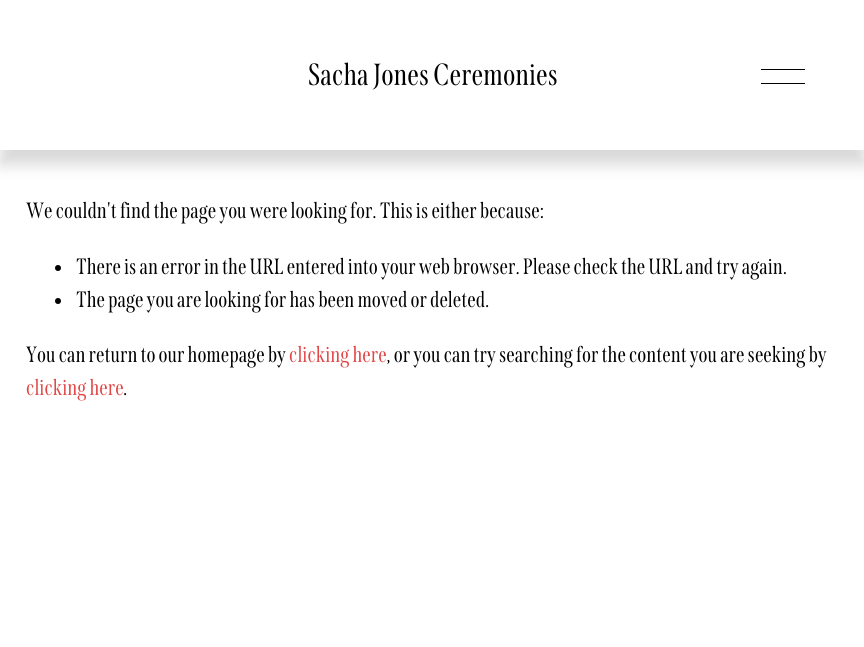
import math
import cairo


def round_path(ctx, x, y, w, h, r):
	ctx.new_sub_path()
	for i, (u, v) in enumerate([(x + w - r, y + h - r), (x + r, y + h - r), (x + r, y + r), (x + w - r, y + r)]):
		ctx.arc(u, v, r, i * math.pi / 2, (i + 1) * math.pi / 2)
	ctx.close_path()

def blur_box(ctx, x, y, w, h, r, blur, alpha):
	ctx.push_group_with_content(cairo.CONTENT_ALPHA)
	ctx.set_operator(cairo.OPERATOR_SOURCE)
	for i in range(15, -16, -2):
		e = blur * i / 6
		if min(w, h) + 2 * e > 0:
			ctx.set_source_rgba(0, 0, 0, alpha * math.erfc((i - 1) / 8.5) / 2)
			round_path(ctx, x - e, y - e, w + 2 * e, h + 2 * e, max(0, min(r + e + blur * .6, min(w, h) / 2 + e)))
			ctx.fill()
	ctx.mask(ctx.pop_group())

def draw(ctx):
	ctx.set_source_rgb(1, 1, 1)
	ctx.paint()
	ctx.save()
	ctx.rectangle(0, 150, 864, 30)
	ctx.clip()
	ctx.set_source_rgb(0.851, 0.851, 0.851)
	blur_box(ctx, 0, 15, 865, 150, 0, 7.5, 1)
	ctx.restore()
	ctx.select_font_face('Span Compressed')
	ctx.set_font_size(30.5)
	ctx.set_source_rgb(0, 0, 0)
	ctx.move_to(308, 85)
	ctx.show_text('Sacha Jones Ceremonies')
	ctx.rectangle(761, 69, 44, 1)
	ctx.fill()
	ctx.rectangle(761, 83, 44, 1)
	ctx.fill()
	ctx.set_font_size(22.1)
	ctx.move_to(26, 218)
	ctx.show_text('We couldn\'t find the page you were looking for. This is either because:')
	ctx.new_path()
	ctx.arc(58, 268, 3, 0, 2 * math.pi)
	ctx.fill()
	ctx.move_to(76, 274)
	ctx.show_text('There is an error in the URL entered into your web browser. Please check the URL and try again.')
	ctx.new_path()
	ctx.arc(58, 301, 3, 0, 2 * math.pi)
	ctx.fill()
	ctx.move_to(76, 307)
	ctx.show_text('The page you are looking for has been moved or deleted.')
	ctx.move_to(26, 362)
	ctx.show_text('You can return to our homepage by')
	ctx.set_source_rgb(0.886, 0.275, 0.275)
	ctx.move_to(289, 362)
	ctx.show_text('clicking here')
	ctx.set_source_rgb(0, 0, 0)
	ctx.move_to(386, 362)
	ctx.show_text(', or you can try searching for the content you are seeking by')
	ctx.set_source_rgb(0.886, 0.275, 0.275)
	ctx.move_to(26, 395)
	ctx.show_text('clicking here')
	ctx.set_source_rgb(0, 0, 0)
	ctx.move_to(123, 395)
	ctx.show_text('.')


surface = cairo.ImageSurface(cairo.FORMAT_RGB24, 864, 647)
ctx = cairo.Context(surface)
options = cairo.FontOptions()
options.set_hint_metrics(cairo.HINT_METRICS_OFF)
options.set_hint_style(cairo.HINT_STYLE_NONE)
ctx.set_font_options(options)
ctx.set_miter_limit(4)
draw(ctx)
surface.write_to_png('image.png')
